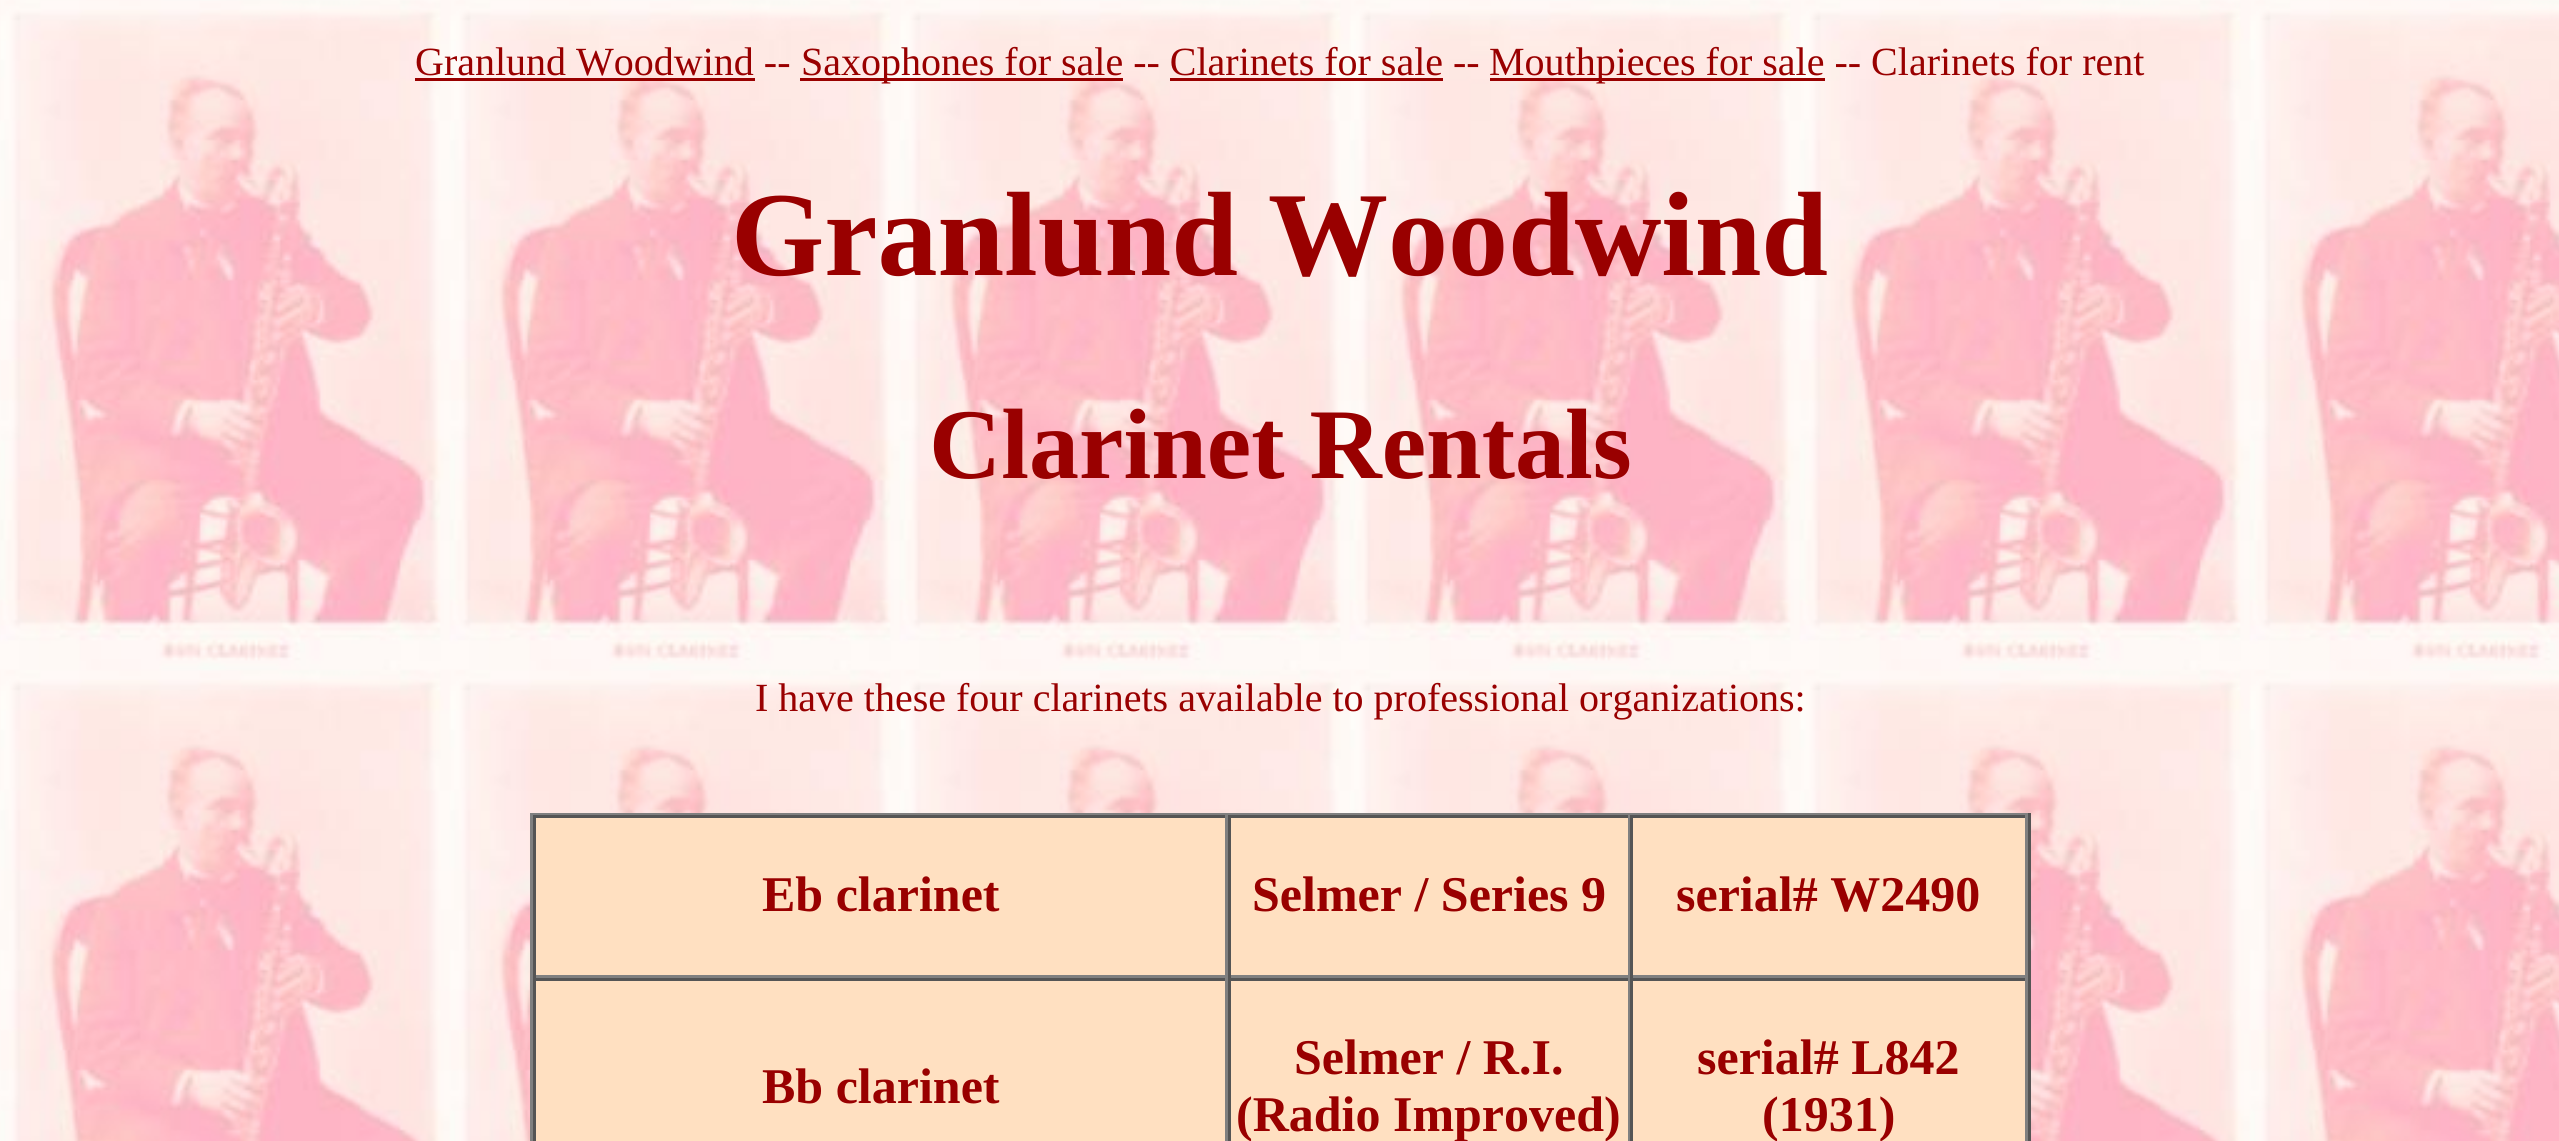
import math
import cairo


def paste(ctx, path, x, y, w, h):
	ctx.save()
	ctx.set_source_surface(cairo.ImageSurface.create_from_png(path), x, y)
	ctx.rectangle(x, y, w, h)
	ctx.fill()
	ctx.restore()

def draw(ctx):
	ctx.set_source_rgb(1, 1, 1)
	ctx.paint()
	paste(ctx, 'media/1.png', 0, 0, 2559, 1141)
	ctx.select_font_face('Liberation Serif')
	ctx.set_font_size(40)
	ctx.set_source_rgb(0.6, 0, 0)
	ctx.move_to(415, 75)
	ctx.show_text('Granlund Woodwind --')
	ctx.rectangle(415, 78, 340, 3)
	ctx.fill()
	ctx.rectangle(800, 78, 323, 3)
	ctx.fill()
	ctx.move_to(801, 75)
	ctx.show_text('Saxophones for sale -- Clarinets for sale --')
	ctx.rectangle(1490, 78, 335, 3)
	ctx.fill()
	ctx.move_to(1489, 75)
	ctx.show_text('Mouthpieces for sale -- Clarinets for rent')
	ctx.rectangle(1170, 78, 273, 3)
	ctx.fill()
	ctx.select_font_face('Liberation Serif', cairo.FONT_SLANT_NORMAL, cairo.FONT_WEIGHT_BOLD)
	ctx.set_font_size(120)
	ctx.move_to(731, 275)
	ctx.show_text('Granlund Woodwind')
	ctx.set_font_size(100)
	ctx.move_to(929, 478)
	ctx.show_text('Clarinet Rentals')
	ctx.select_font_face('Liberation Serif')
	ctx.set_font_size(40)
	ctx.move_to(755, 711)
	ctx.show_text('I have these four clarinets available to professional organizations:')
	ctx.set_source_rgb(1, 0.878, 0.757)
	ctx.rectangle(536, 818, 1489, 323)
	ctx.fill()
	ctx.set_source_rgb(0.502, 0.502, 0.502)
	ctx.rectangle(530, 813, 1500, 2)
	ctx.fill()
	ctx.set_source_rgb(0.333, 0.333, 0.333)
	ctx.rectangle(2028, 813, 3, 328)
	ctx.fill()
	ctx.set_source_rgb(0.502, 0.502, 0.502)
	ctx.rectangle(530, 813, 3, 328)
	ctx.fill()
	ctx.set_source_rgb(0.333, 0.333, 0.333)
	ctx.rectangle(533, 815, 1495, 3)
	ctx.fill()
	ctx.set_source_rgb(0.502, 0.502, 0.502)
	ctx.rectangle(1225, 815, 3, 163)
	ctx.rectangle(533, 975, 695, 3)
	ctx.fill()
	ctx.set_source_rgb(0.333, 0.333, 0.333)
	ctx.rectangle(533, 815, 3, 163)
	ctx.fill()
	ctx.select_font_face('Liberation Serif', cairo.FONT_SLANT_NORMAL, cairo.FONT_WEIGHT_BOLD)
	ctx.set_font_size(50)
	ctx.set_source_rgb(0.6, 0, 0)
	ctx.move_to(762, 911)
	ctx.show_text('Eb clarinet')
	ctx.set_source_rgb(0.502, 0.502, 0.502)
	ctx.rectangle(1628, 815, 2, 163)
	ctx.rectangle(1228, 975, 402, 3)
	ctx.fill()
	ctx.set_source_rgb(0.333, 0.333, 0.333)
	ctx.rectangle(1228, 815, 3, 163)
	ctx.fill()
	ctx.set_source_rgb(0.6, 0, 0)
	ctx.move_to(1252, 911)
	ctx.show_text('Selmer / Series 9')
	ctx.set_source_rgb(0.502, 0.502, 0.502)
	ctx.rectangle(2025, 815, 3, 163)
	ctx.rectangle(1630, 975, 398, 3)
	ctx.fill()
	ctx.set_source_rgb(0.333, 0.333, 0.333)
	ctx.rectangle(1630, 815, 3, 163)
	ctx.fill()
	ctx.set_source_rgb(0.6, 0, 0)
	ctx.move_to(1676, 911)
	ctx.show_text('serial# W2490')
	ctx.set_source_rgb(0.333, 0.333, 0.333)
	ctx.rectangle(533, 978, 1495, 3)
	ctx.fill()
	ctx.set_source_rgb(0.502, 0.502, 0.502)
	ctx.rectangle(1225, 978, 3, 163)
	ctx.fill()
	ctx.set_source_rgb(0.333, 0.333, 0.333)
	ctx.rectangle(533, 978, 3, 163)
	ctx.fill()
	ctx.set_source_rgb(0.6, 0, 0)
	ctx.move_to(762, 1103)
	ctx.show_text('Bb clarinet')
	ctx.set_source_rgb(0.502, 0.502, 0.502)
	ctx.rectangle(1628, 978, 2, 163)
	ctx.fill()
	ctx.set_source_rgb(0.333, 0.333, 0.333)
	ctx.rectangle(1228, 978, 3, 163)
	ctx.fill()
	ctx.set_source_rgb(0.6, 0, 0)
	ctx.move_to(1294, 1074)
	ctx.show_text('Selmer / R.I.')
	ctx.move_to(1236, 1131)
	ctx.show_text('(Radio Improved)')
	ctx.set_source_rgb(0.502, 0.502, 0.502)
	ctx.rectangle(2025, 978, 3, 163)
	ctx.fill()
	ctx.set_source_rgb(0.333, 0.333, 0.333)
	ctx.rectangle(1630, 978, 3, 163)
	ctx.fill()
	ctx.set_source_rgb(0.6, 0, 0)
	ctx.move_to(1697, 1074)
	ctx.show_text('serial# L842')
	ctx.move_to(1762, 1131)
	ctx.show_text('(1931)')


surface = cairo.ImageSurface(cairo.FORMAT_RGB24, 2559, 1141)
ctx = cairo.Context(surface)
options = cairo.FontOptions()
options.set_hint_metrics(cairo.HINT_METRICS_OFF)
options.set_hint_style(cairo.HINT_STYLE_NONE)
ctx.set_font_options(options)
ctx.set_miter_limit(4)
draw(ctx)
surface.write_to_png('image.png')
